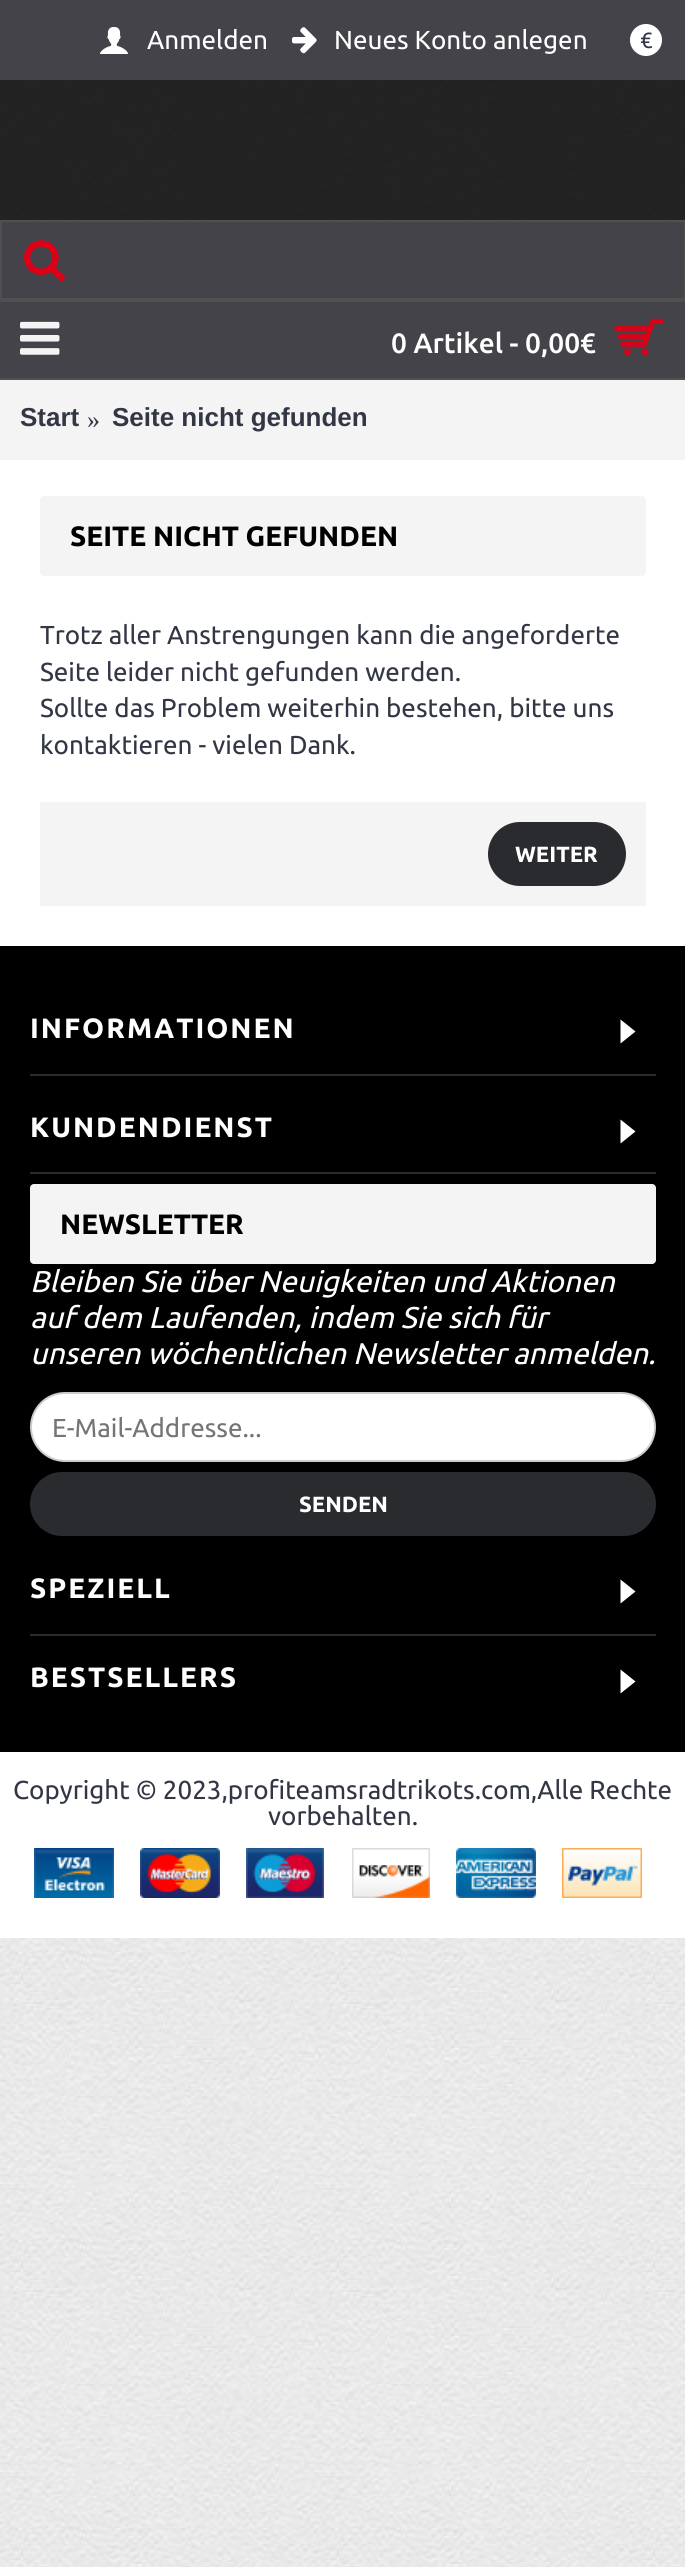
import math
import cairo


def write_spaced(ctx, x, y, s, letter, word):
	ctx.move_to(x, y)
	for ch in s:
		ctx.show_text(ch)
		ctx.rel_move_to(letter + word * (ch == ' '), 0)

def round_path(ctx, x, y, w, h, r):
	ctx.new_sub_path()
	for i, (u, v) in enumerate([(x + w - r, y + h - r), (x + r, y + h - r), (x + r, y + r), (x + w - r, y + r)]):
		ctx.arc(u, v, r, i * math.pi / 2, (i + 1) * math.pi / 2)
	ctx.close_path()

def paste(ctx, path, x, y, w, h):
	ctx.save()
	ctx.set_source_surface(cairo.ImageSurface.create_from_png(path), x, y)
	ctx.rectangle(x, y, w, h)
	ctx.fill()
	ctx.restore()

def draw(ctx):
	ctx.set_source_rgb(1, 1, 1)
	ctx.paint()
	paste(ctx, 'media/1.png', 0, 80, 685, 2487)
	ctx.set_source_rgba(0, 0, 0, 0.85)
	ctx.rectangle(0, 80, 685, 140)
	ctx.fill()
	ctx.set_source_rgb(0.267, 0.263, 0.286)
	ctx.rectangle(0, 0, 685, 80)
	ctx.fill()
	paste(ctx, 'media/2.png', 100, 27, 28, 27)
	ctx.select_font_face('Ubuntu')
	ctx.set_font_size(26)
	ctx.set_source_rgb(1, 1, 1)
	ctx.move_to(147, 49)
	ctx.show_text('Anmelden')
	paste(ctx, 'media/3.png', 292, 27, 25, 27)
	ctx.move_to(334, 49)
	ctx.show_text('Neues Konto anlegen')
	ctx.new_path()
	ctx.arc(646, 40, 16, 0, 2 * math.pi)
	ctx.fill()
	ctx.set_font_size(22)
	ctx.set_source_rgb(0.2, 0.216, 0.271)
	ctx.move_to(640, 48)
	ctx.show_text('€')
	ctx.set_source_rgb(0.267, 0.263, 0.286)
	ctx.rectangle(0, 302, 685, 76)
	ctx.fill()
	paste(ctx, 'media/4.png', 20, 321, 40, 34)
	ctx.rectangle(1, 221, 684, 78)
	ctx.fill_preserve()
	ctx.set_source_rgb(0.314, 0.314, 0.314)
	ctx.stroke()
	paste(ctx, 'media/5.png', 24, 240, 41, 42)
	ctx.rectangle(0, 300, 685, 2)
	ctx.fill()
	ctx.rectangle(0, 378, 685, 2)
	ctx.fill()
	ctx.select_font_face('Ubuntu Medium')
	ctx.set_font_size(28)
	ctx.set_source_rgb(1, 1, 1)
	ctx.move_to(391, 353)
	ctx.show_text('0 Artikel - 0,00€')
	paste(ctx, 'media/6.png', 614, 318, 50, 38)
	ctx.rectangle(0, 460, 685, 486)
	ctx.fill()
	ctx.set_source_rgb(0.957, 0.957, 0.957)
	ctx.rectangle(0, 380, 685, 80)
	ctx.fill()
	ctx.select_font_face('Liberation Sans', cairo.FONT_SLANT_NORMAL, cairo.FONT_WEIGHT_BOLD)
	ctx.set_font_size(26)
	ctx.set_source_rgb(0.2, 0.216, 0.271)
	ctx.move_to(20, 426)
	ctx.show_text('Start')
	ctx.select_font_face('Liberation Serif')
	ctx.move_to(87, 428)
	ctx.show_text('»')
	ctx.select_font_face('Liberation Sans', cairo.FONT_SLANT_NORMAL, cairo.FONT_WEIGHT_BOLD)
	ctx.move_to(112, 426)
	ctx.show_text('Seite nicht gefunden')
	ctx.set_source_rgb(0.957, 0.957, 0.957)
	round_path(ctx, 40, 496, 606, 80, 4)
	ctx.fill()
	ctx.select_font_face('Ubuntu', cairo.FONT_SLANT_NORMAL, cairo.FONT_WEIGHT_BOLD)
	ctx.set_font_size(28)
	ctx.set_source_rgb(0, 0, 0)
	ctx.move_to(70, 546)
	ctx.show_text('SEITE NICHT GEFUNDEN')
	ctx.select_font_face('Ubuntu')
	ctx.set_font_size(26)
	ctx.set_source_rgb(0.2, 0.216, 0.271)
	for x, y, s in [
		(40, 644, 'Trotz aller Anstrengungen kann die angeforderte'),
		(40, 681, 'Seite leider nicht gefunden werden.'),
		(40, 717, 'Sollte das Problem weiterhin bestehen, bitte uns'),
		(40, 754, 'kontaktieren - vielen Dank.'),
	]:
		ctx.move_to(x, y)
		ctx.show_text(s)
	ctx.set_source_rgb(0.957, 0.957, 0.957)
	ctx.rectangle(40, 802, 606, 104)
	ctx.fill()
	ctx.set_source_rgb(0.165, 0.169, 0.18)
	round_path(ctx, 488, 822, 138, 64, 32)
	ctx.fill()
	ctx.select_font_face('Ubuntu', cairo.FONT_SLANT_NORMAL, cairo.FONT_WEIGHT_BOLD)
	ctx.set_font_size(22)
	ctx.set_source_rgb(1, 1, 1)
	ctx.move_to(515, 862)
	ctx.show_text('WEITER')
	ctx.set_source_rgb(0, 0, 0)
	ctx.rectangle(0, 946, 685, 806)
	ctx.fill()
	ctx.set_source_rgb(0.165, 0.169, 0.18)
	ctx.rectangle(30, 1074, 626, 2)
	ctx.fill()
	ctx.set_font_size(28)
	ctx.set_source_rgb(1, 1, 1)
	write_spaced(ctx, 30, 1038, 'INFORMATIONEN', 2, 0)
	ctx.new_path()
	ctx.move_to(620.5, 1019.5)
	ctx.line_to(620.5, 1043.5)
	ctx.line_to(635.5, 1031.5)
	ctx.close_path()
	ctx.fill()
	ctx.set_source_rgb(0.165, 0.169, 0.18)
	ctx.rectangle(30, 1172, 626, 2)
	ctx.fill()
	ctx.set_source_rgb(1, 1, 1)
	write_spaced(ctx, 30, 1137, 'KUNDENDIENST', 2, 0)
	ctx.new_path()
	ctx.move_to(620.5, 1119.5)
	ctx.line_to(620.5, 1143.5)
	ctx.line_to(635.5, 1131.5)
	ctx.close_path()
	ctx.fill()
	ctx.set_source_rgb(0.957, 0.957, 0.957)
	round_path(ctx, 30, 1184, 626, 80, 4)
	ctx.fill()
	ctx.set_source_rgb(0, 0, 0)
	ctx.move_to(60, 1234)
	ctx.show_text('NEWSLETTER')
	ctx.select_font_face('Ubuntu', cairo.FONT_SLANT_ITALIC)
	ctx.set_font_size(30)
	ctx.set_source_rgb(1, 1, 1)
	for x, y, s in [
		(30, 1292, 'Bleiben Sie über Neuigkeiten und Aktionen'),
		(30, 1328, 'auf dem Laufenden, indem Sie sich für'),
		(30, 1364, 'unseren wöchentlichen Newsletter anmelden.'),
	]:
		ctx.move_to(x, y)
		ctx.show_text(s)
	round_path(ctx, 31, 1393, 624, 68, 34)
	ctx.fill_preserve()
	ctx.set_source_rgb(0.8, 0.8, 0.8)
	ctx.stroke()
	ctx.select_font_face('Ubuntu')
	ctx.set_font_size(26)
	ctx.set_source_rgb(0.459, 0.459, 0.459)
	ctx.move_to(52, 1437)
	ctx.show_text('E-Mail-Addresse...')
	ctx.set_source_rgb(0.165, 0.169, 0.18)
	round_path(ctx, 30, 1472, 626, 64, 32)
	ctx.fill()
	ctx.select_font_face('Ubuntu', cairo.FONT_SLANT_NORMAL, cairo.FONT_WEIGHT_BOLD)
	ctx.set_font_size(22)
	ctx.set_source_rgb(1, 1, 1)
	ctx.move_to(299, 1512)
	ctx.show_text('SENDEN')
	ctx.set_source_rgb(0.165, 0.169, 0.18)
	ctx.rectangle(30, 1634, 626, 2)
	ctx.fill()
	ctx.set_font_size(28)
	ctx.set_source_rgb(1, 1, 1)
	write_spaced(ctx, 30, 1598, 'SPEZIELL', 2, 0)
	ctx.new_path()
	ctx.move_to(620.5, 1579.5)
	ctx.line_to(620.5, 1603.5)
	ctx.line_to(635.5, 1591.5)
	ctx.close_path()
	ctx.fill()
	write_spaced(ctx, 30, 1687, 'BESTSELLERS', 2, 0)
	ctx.new_path()
	ctx.move_to(620.5, 1669.5)
	ctx.line_to(620.5, 1693.5)
	ctx.line_to(635.5, 1681.5)
	ctx.close_path()
	ctx.fill()
	ctx.rectangle(0, 1752, 685, 186)
	ctx.fill()
	ctx.select_font_face('Ubuntu')
	ctx.set_font_size(26)
	ctx.set_source_rgb(0.2, 0.216, 0.271)
	ctx.move_to(13, 1799)
	ctx.show_text('Copyright © 2023,profiteamsradtrikots.com,Alle Rechte')
	ctx.move_to(268, 1825)
	ctx.show_text('vorbehalten.')
	paste(ctx, 'media/7.png', 34, 1848, 80, 50)
	paste(ctx, 'media/8.png', 140, 1848, 80, 50)
	paste(ctx, 'media/9.png', 246, 1848, 78, 50)
	paste(ctx, 'media/10.png', 352, 1848, 78, 50)
	paste(ctx, 'media/11.png', 456, 1848, 80, 50)
	paste(ctx, 'media/12.png', 562, 1848, 80, 50)


surface = cairo.ImageSurface(cairo.FORMAT_RGB24, 685, 2567)
ctx = cairo.Context(surface)
options = cairo.FontOptions()
options.set_hint_metrics(cairo.HINT_METRICS_OFF)
options.set_hint_style(cairo.HINT_STYLE_NONE)
ctx.set_font_options(options)
ctx.set_miter_limit(4)
draw(ctx)
surface.write_to_png('image.png')
